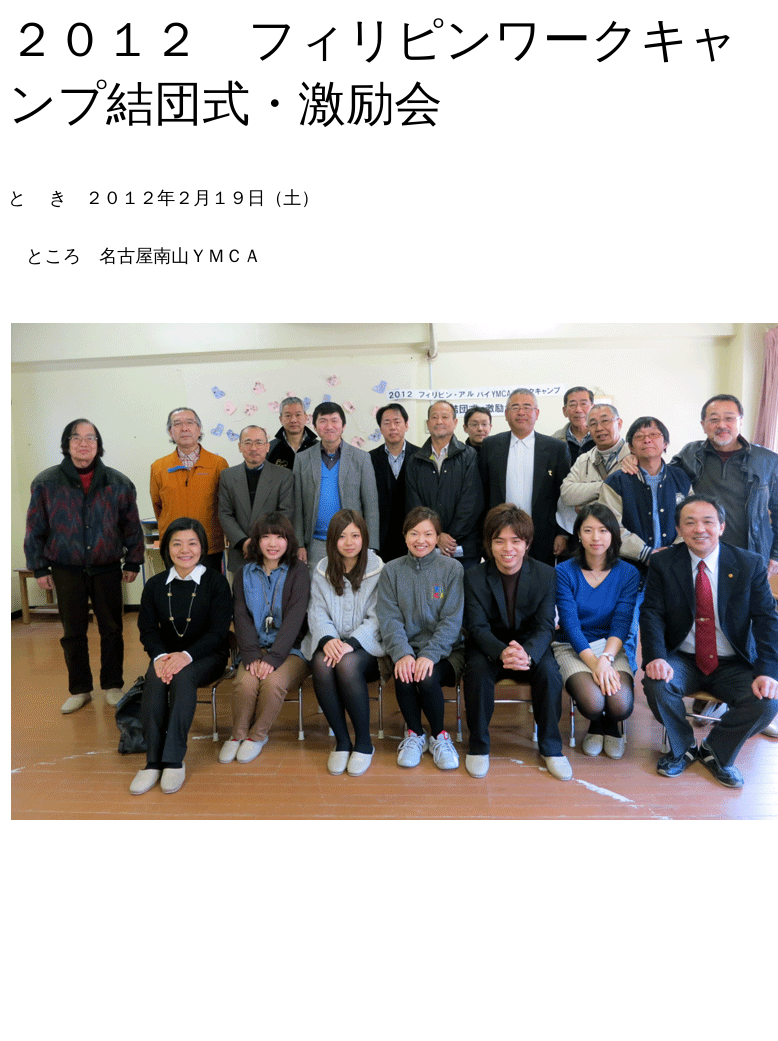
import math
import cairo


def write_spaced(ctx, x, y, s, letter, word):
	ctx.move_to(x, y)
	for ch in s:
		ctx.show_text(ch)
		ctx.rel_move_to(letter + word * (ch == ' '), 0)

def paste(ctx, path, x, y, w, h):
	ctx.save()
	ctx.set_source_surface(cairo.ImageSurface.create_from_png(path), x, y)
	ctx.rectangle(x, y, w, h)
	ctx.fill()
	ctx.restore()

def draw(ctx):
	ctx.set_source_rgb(1, 1, 1)
	ctx.paint()
	ctx.select_font_face('WenQuanYi Zen Hei Medium')
	ctx.set_font_size(48)
	ctx.set_source_rgb(0, 0, 0)
	ctx.move_to(8, 56)
	ctx.show_text('２０１２　フィリピンワークキャ')
	ctx.move_to(8, 120)
	ctx.show_text('ンプ結団式・激励会')
	ctx.set_font_size(18)
	write_spaced(ctx, 8, 204, 'と　 き　２０１２年２月１９日（土）', 0, -1)
	ctx.move_to(26, 262)
	ctx.show_text('ところ　名古屋南山ＹＭＣＡ')
	paste(ctx, 'media/1.png', 11, 323, 767, 497)


surface = cairo.ImageSurface(cairo.FORMAT_RGB24, 778, 1041)
ctx = cairo.Context(surface)
options = cairo.FontOptions()
options.set_hint_metrics(cairo.HINT_METRICS_OFF)
options.set_hint_style(cairo.HINT_STYLE_NONE)
ctx.set_font_options(options)
ctx.set_miter_limit(4)
draw(ctx)
surface.write_to_png('image.png')
